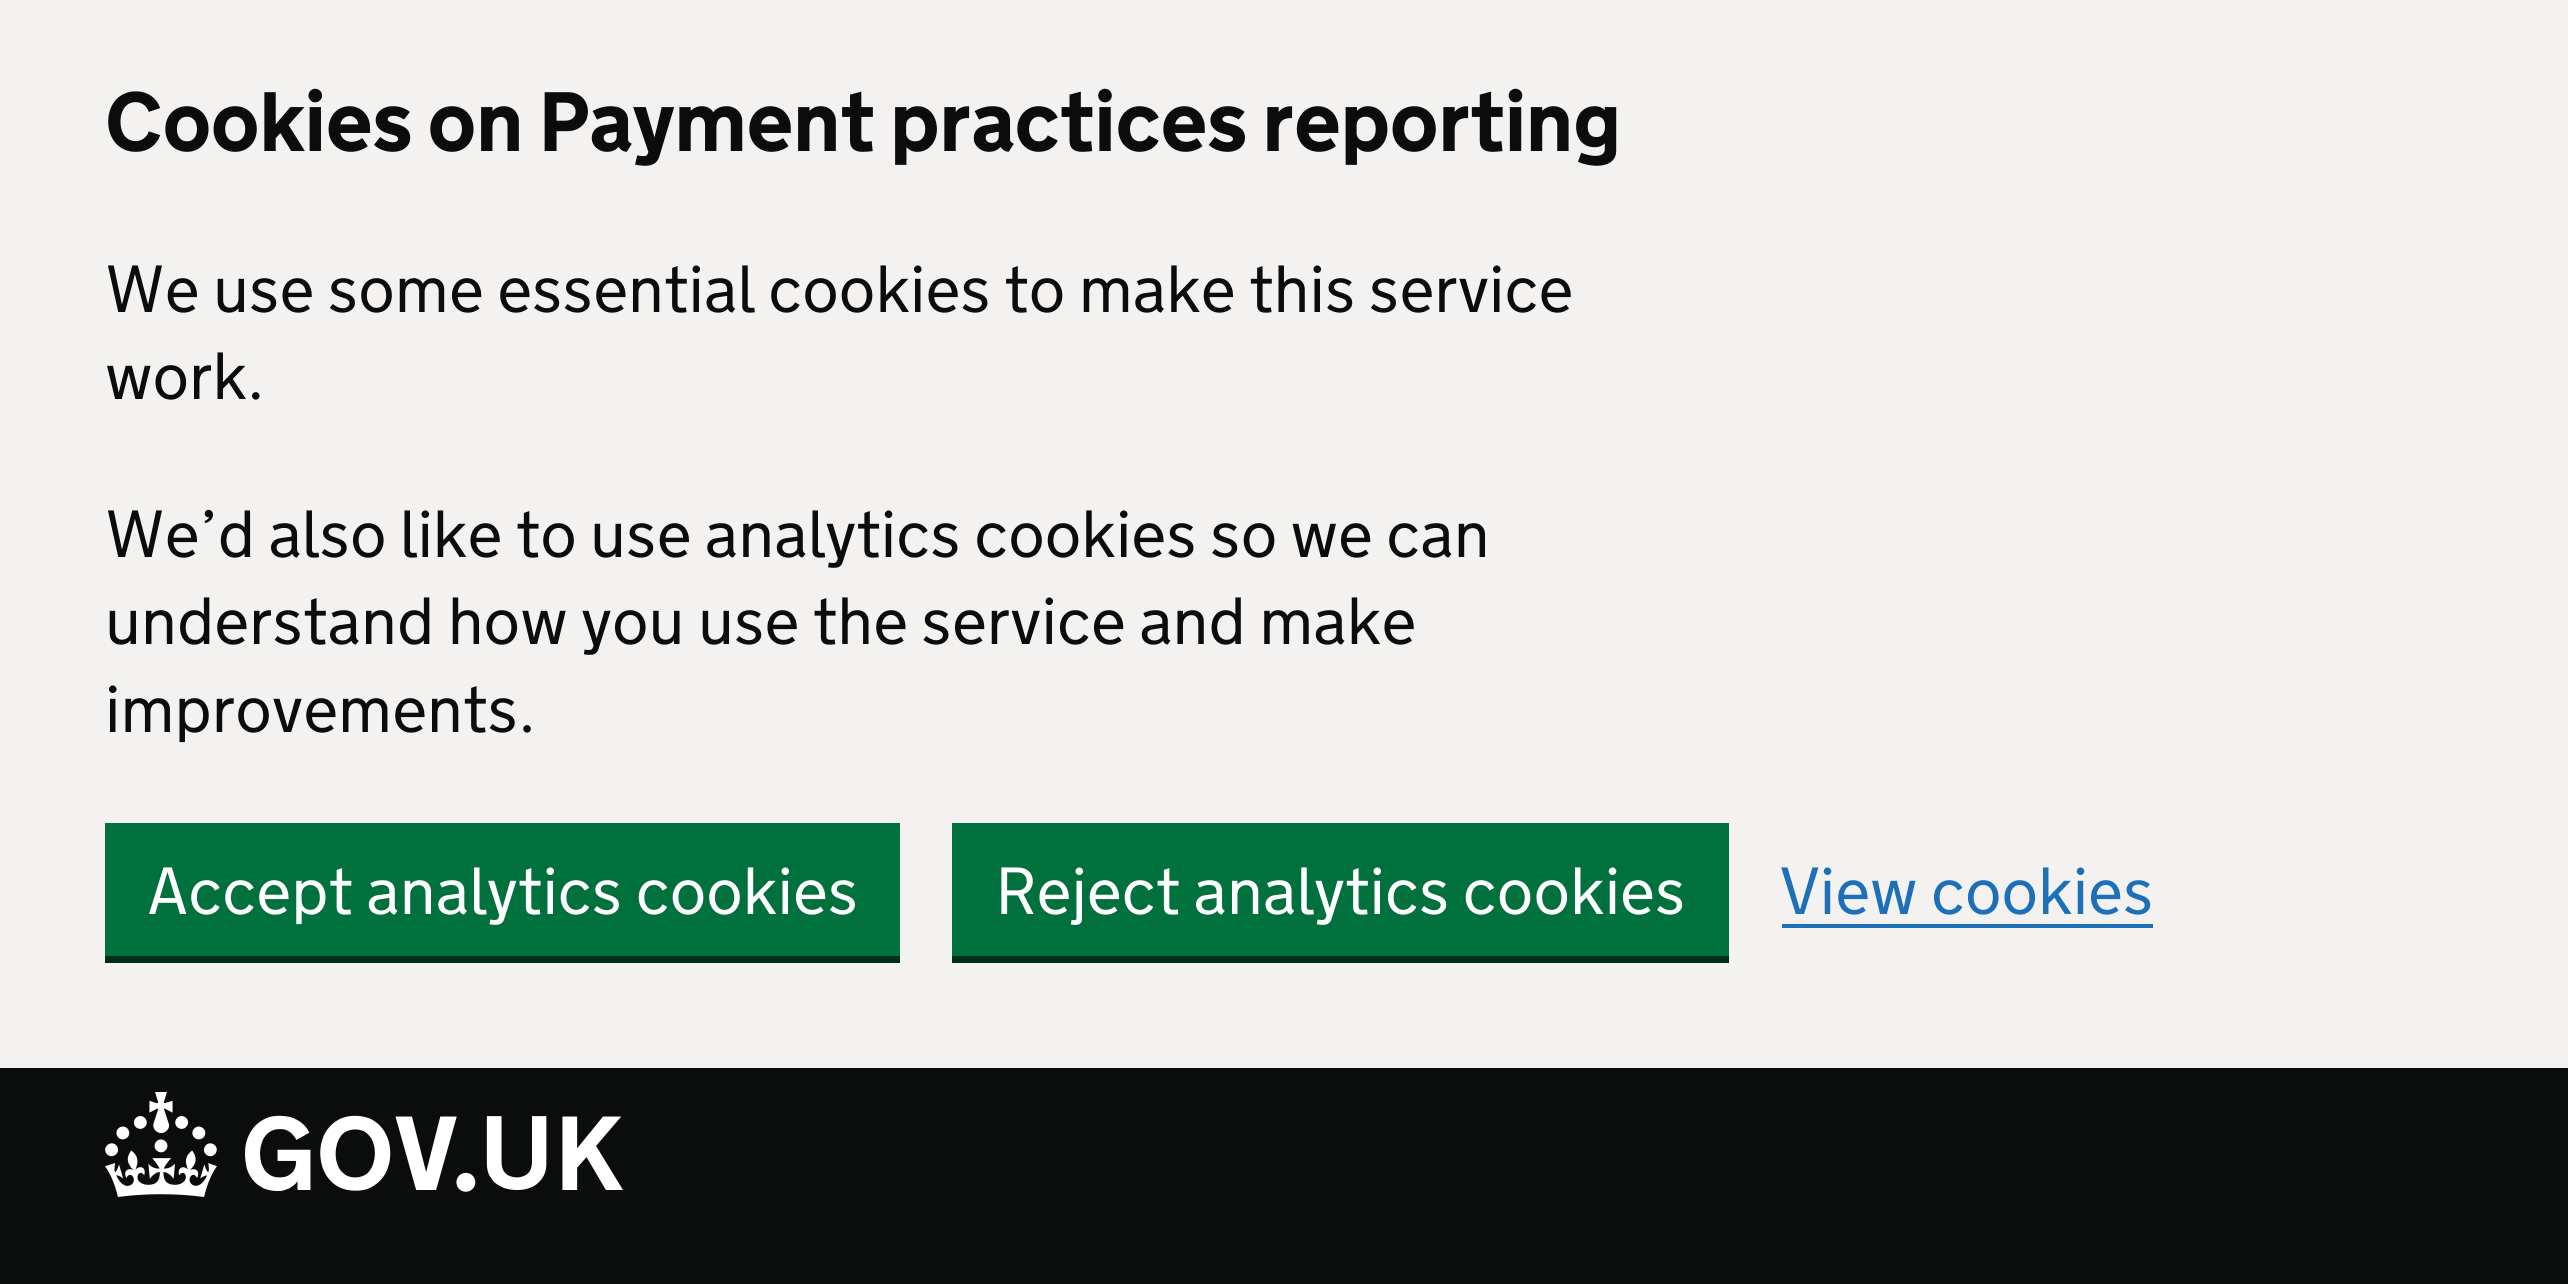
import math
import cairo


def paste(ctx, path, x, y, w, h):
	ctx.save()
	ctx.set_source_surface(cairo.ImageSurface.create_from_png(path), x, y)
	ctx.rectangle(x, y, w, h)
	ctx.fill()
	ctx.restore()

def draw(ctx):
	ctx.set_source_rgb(0.953, 0.949, 0.945)
	ctx.paint()
	ctx.select_font_face('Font', cairo.FONT_SLANT_NORMAL, cairo.FONT_WEIGHT_BOLD)
	ctx.set_font_size(84)
	ctx.set_source_rgb(0.043, 0.047, 0.047)
	ctx.move_to(105, 151)
	ctx.show_text('Cookies on Payment practices reporting')
	ctx.select_font_face('Font Light')
	ctx.set_font_size(66.5)
	for x, y, s in [
		(105, 312, 'We use some essential cookies to make this service'),
		(105, 399, 'work.'),
		(105, 557, 'We’d also like to use analytics cookies so we can'),
		(105, 644, 'understand how you use the service and make'),
		(105, 732, 'improvements.'),
	]:
		ctx.move_to(x, y)
		ctx.show_text(s)
	ctx.set_source_rgb(0, 0.176, 0.094)
	ctx.new_path()
	ctx.move_to(105, 956)
	ctx.line_to(105, 963)
	ctx.line_to(900, 963)
	ctx.line_to(900, 830)
	ctx.line_to(900, 956)
	ctx.close_path()
	ctx.fill()
	ctx.set_source_rgb(0, 0.439, 0.235)
	ctx.rectangle(105, 823, 795, 133)
	ctx.fill()
	ctx.set_source_rgb(1, 1, 1)
	ctx.move_to(147, 914)
	ctx.show_text('Accept analytics cookies')
	ctx.set_source_rgb(0, 0.176, 0.094)
	ctx.rectangle(952, 956, 777, 7)
	ctx.fill()
	ctx.set_source_rgb(0, 0.439, 0.235)
	ctx.rectangle(952, 823, 777, 133)
	ctx.fill()
	ctx.set_source_rgb(1, 1, 1)
	ctx.move_to(995, 914)
	ctx.show_text('Reject analytics cookies')
	ctx.set_source_rgb(0.114, 0.439, 0.722)
	ctx.move_to(1780, 914)
	ctx.show_text('View cookies')
	ctx.rectangle(1782, 924, 371, 4)
	ctx.fill()
	ctx.set_source_rgb(0.043, 0.047, 0.047)
	ctx.rectangle(0, 1068, 2568, 216)
	ctx.fill()
	paste(ctx, 'media/1.png', 105, 1092, 518, 105)


surface = cairo.ImageSurface(cairo.FORMAT_RGB24, 2568, 1284)
ctx = cairo.Context(surface)
options = cairo.FontOptions()
options.set_hint_metrics(cairo.HINT_METRICS_OFF)
options.set_hint_style(cairo.HINT_STYLE_NONE)
ctx.set_font_options(options)
ctx.set_miter_limit(4)
draw(ctx)
surface.write_to_png('image.png')
